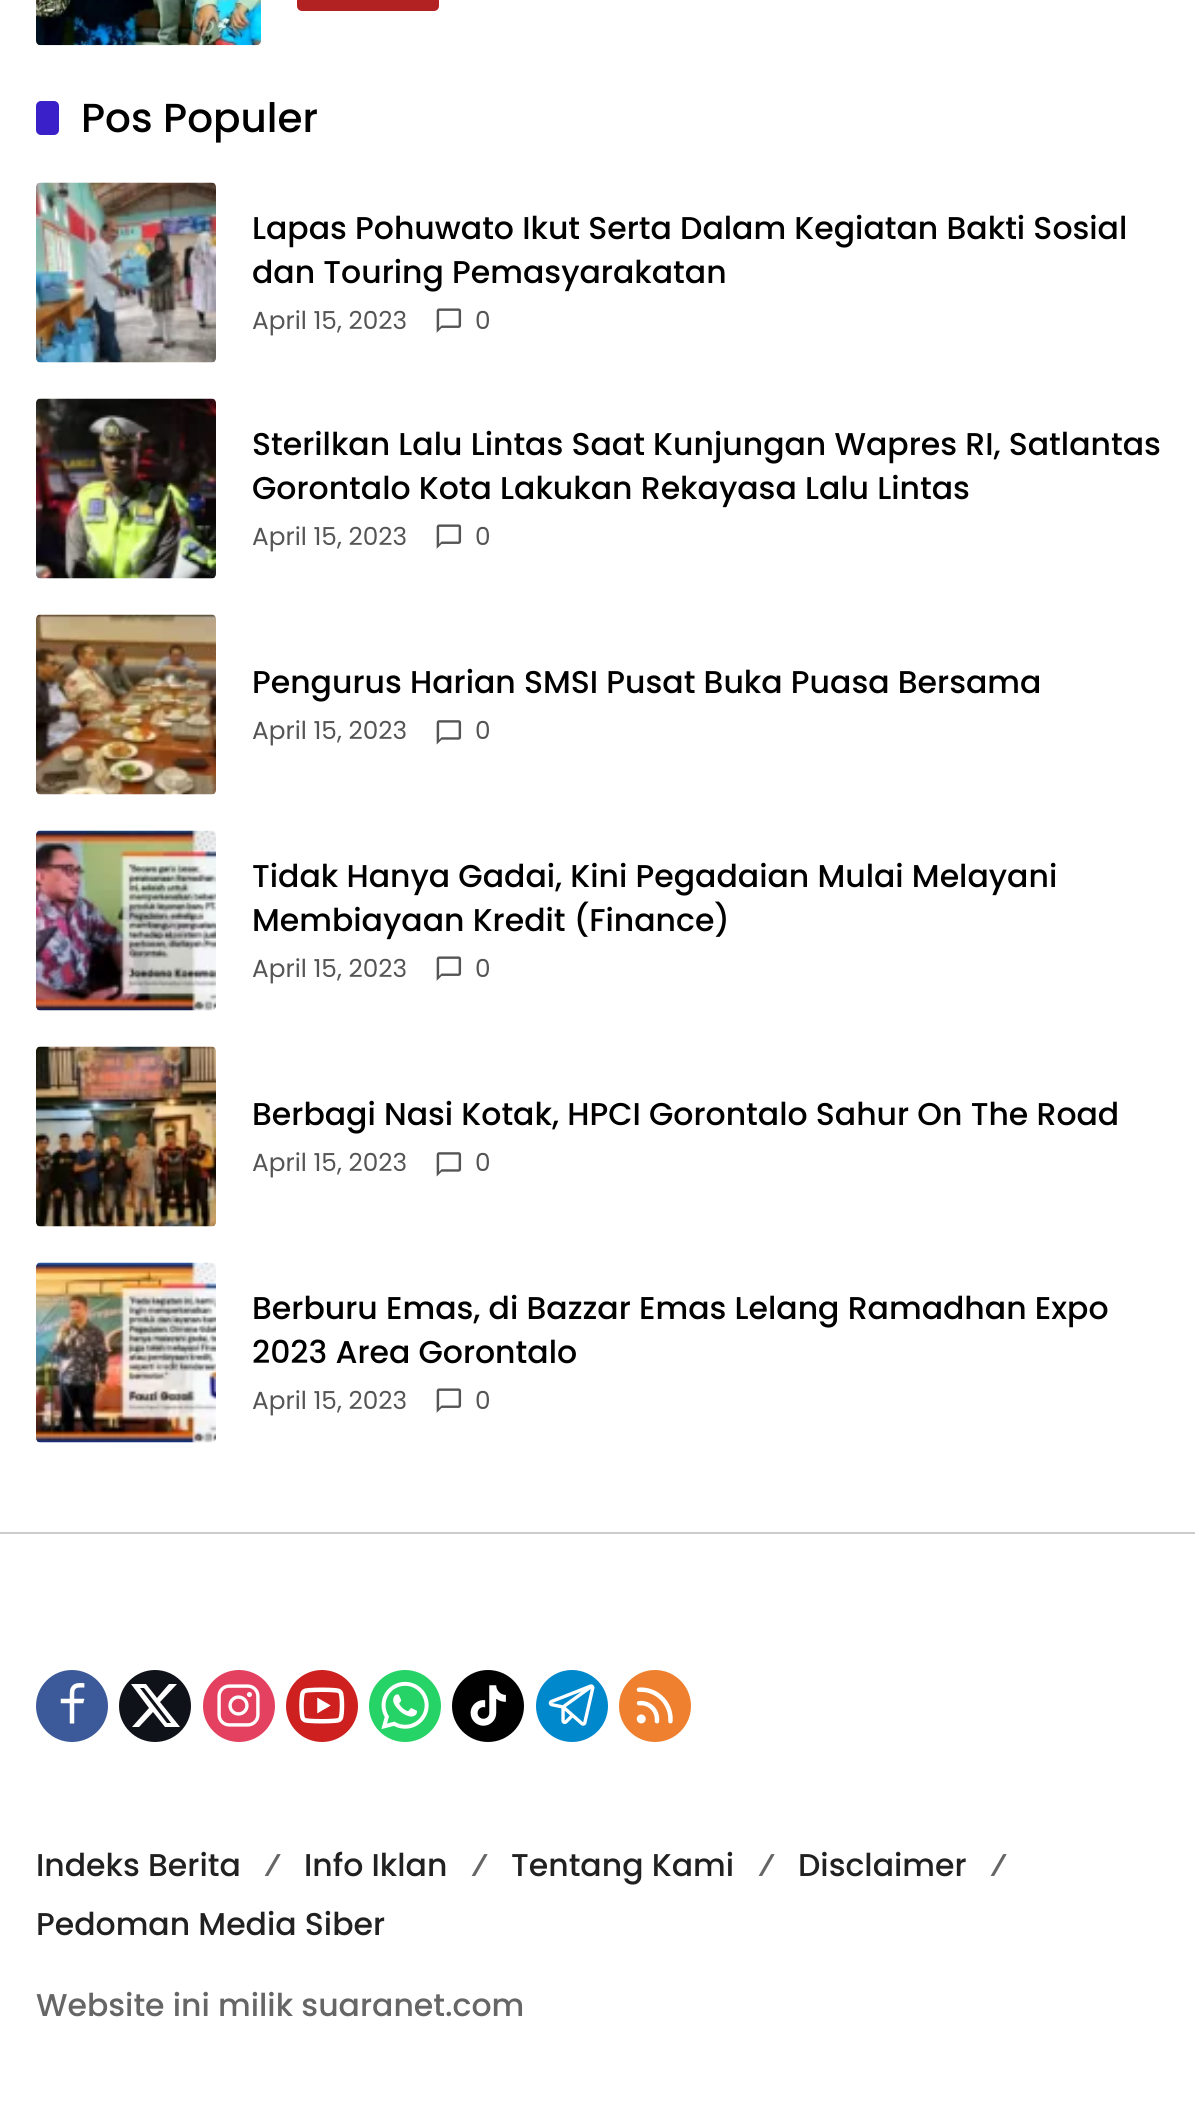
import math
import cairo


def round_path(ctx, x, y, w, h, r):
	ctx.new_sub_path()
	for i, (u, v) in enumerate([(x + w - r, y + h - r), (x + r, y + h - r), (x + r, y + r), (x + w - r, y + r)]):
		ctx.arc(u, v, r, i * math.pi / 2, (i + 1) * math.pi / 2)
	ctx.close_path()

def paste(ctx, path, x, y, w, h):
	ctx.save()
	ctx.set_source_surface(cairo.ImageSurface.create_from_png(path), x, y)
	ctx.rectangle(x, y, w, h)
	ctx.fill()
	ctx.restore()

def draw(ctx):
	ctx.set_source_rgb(1, 1, 1)
	ctx.paint()
	paste(ctx, 'media/1.png', 36, 0, 225, 46)
	ctx.set_source_rgb(0.698, 0.133, 0.133)
	round_path(ctx, 297, -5, 142, 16, 5)
	ctx.fill()
	ctx.set_source_rgb(0.224, 0.125, 0.788)
	round_path(ctx, 36, 101, 23, 34, 5)
	ctx.fill()
	ctx.select_font_face('Poppins Medium')
	ctx.set_font_size(40.5)
	ctx.set_source_rgb(0, 0, 0)
	ctx.move_to(81, 132)
	ctx.show_text('Pos Populer')
	paste(ctx, 'media/2.png', 36, 182, 180, 181)
	ctx.set_font_size(31.5)
	ctx.move_to(252, 239)
	ctx.show_text('Lapas Pohuwato Ikut Serta Dalam Kegiatan Bakti Sosial')
	ctx.move_to(252, 283)
	ctx.show_text('dan Touring Pemasyarakatan')
	ctx.select_font_face('Poppins')
	ctx.set_font_size(24.75)
	ctx.set_source_rgb(0.333, 0.333, 0.333)
	ctx.move_to(252, 329)
	ctx.show_text('April 15, 2023')
	paste(ctx, 'media/3.png', 436, 308, 26, 25)
	ctx.move_to(475, 329)
	ctx.show_text('0')
	paste(ctx, 'media/4.png', 36, 398, 180, 181)
	ctx.select_font_face('Poppins Medium')
	ctx.set_font_size(31.5)
	ctx.set_source_rgb(0, 0, 0)
	ctx.move_to(252, 455)
	ctx.show_text('Sterilkan Lalu Lintas Saat Kunjungan Wapres RI, Satlantas')
	ctx.move_to(252, 499)
	ctx.show_text('Gorontalo Kota Lakukan Rekayasa Lalu Lintas')
	ctx.select_font_face('Poppins')
	ctx.set_font_size(24.75)
	ctx.set_source_rgb(0.333, 0.333, 0.333)
	ctx.move_to(252, 545)
	ctx.show_text('April 15, 2023')
	paste(ctx, 'media/3.png', 436, 524, 26, 25)
	ctx.move_to(475, 545)
	ctx.show_text('0')
	paste(ctx, 'media/5.png', 36, 614, 180, 181)
	ctx.select_font_face('Poppins Medium')
	ctx.set_font_size(31.5)
	ctx.set_source_rgb(0, 0, 0)
	ctx.move_to(252, 693)
	ctx.show_text('Pengurus Harian SMSI Pusat Buka Puasa Bersama')
	ctx.select_font_face('Poppins')
	ctx.set_font_size(24.75)
	ctx.set_source_rgb(0.333, 0.333, 0.333)
	ctx.move_to(252, 739)
	ctx.show_text('April 15, 2023')
	paste(ctx, 'media/6.png', 436, 720, 26, 25)
	ctx.move_to(475, 739)
	ctx.show_text('0')
	paste(ctx, 'media/7.png', 36, 830, 180, 181)
	ctx.select_font_face('Poppins Medium')
	ctx.set_font_size(31.5)
	ctx.set_source_rgb(0, 0, 0)
	ctx.move_to(252, 887)
	ctx.show_text('Tidak Hanya Gadai, Kini Pegadaian Mulai Melayani')
	ctx.move_to(252, 931)
	ctx.show_text('Membiayaan Kredit (Finance)')
	ctx.select_font_face('Poppins')
	ctx.set_font_size(24.75)
	ctx.set_source_rgb(0.333, 0.333, 0.333)
	ctx.move_to(252, 977)
	ctx.show_text('April 15, 2023')
	paste(ctx, 'media/3.png', 436, 956, 26, 25)
	ctx.move_to(475, 977)
	ctx.show_text('0')
	paste(ctx, 'media/8.png', 36, 1046, 180, 181)
	ctx.select_font_face('Poppins Medium')
	ctx.set_font_size(31.5)
	ctx.set_source_rgb(0, 0, 0)
	ctx.move_to(252, 1125)
	ctx.show_text('Berbagi Nasi Kotak, HPCI Gorontalo Sahur On The Road')
	ctx.select_font_face('Poppins')
	ctx.set_font_size(24.75)
	ctx.set_source_rgb(0.333, 0.333, 0.333)
	ctx.move_to(252, 1171)
	ctx.show_text('April 15, 2023')
	paste(ctx, 'media/6.png', 436, 1152, 26, 25)
	ctx.move_to(475, 1171)
	ctx.show_text('0')
	paste(ctx, 'media/9.png', 36, 1262, 180, 181)
	ctx.select_font_face('Poppins Medium')
	ctx.set_font_size(31.5)
	ctx.set_source_rgb(0, 0, 0)
	ctx.move_to(252, 1319)
	ctx.show_text('Berburu Emas, di Bazzar Emas Lelang Ramadhan Expo')
	ctx.move_to(252, 1363)
	ctx.show_text('2023 Area Gorontalo')
	ctx.select_font_face('Poppins')
	ctx.set_font_size(24.75)
	ctx.set_source_rgb(0.333, 0.333, 0.333)
	ctx.move_to(252, 1409)
	ctx.show_text('April 15, 2023')
	paste(ctx, 'media/3.png', 436, 1388, 26, 25)
	ctx.move_to(475, 1409)
	ctx.show_text('0')
	ctx.set_source_rgb(0.8, 0.8, 0.8)
	ctx.rectangle(0, 1532, 1195, 2)
	ctx.fill()
	ctx.set_source_rgb(0.235, 0.353, 0.6)
	ctx.arc(72, 1706, 36, 0, 2 * math.pi)
	ctx.fill()
	paste(ctx, 'media/10.png', 60, 1683, 25, 41)
	ctx.set_source_rgb(0.059, 0.078, 0.098)
	ctx.arc(155, 1706, 36, 0, 2 * math.pi)
	ctx.fill()
	ctx.set_source_rgb(1, 1, 1)
	ctx.new_path()
	ctx.move_to(169, 1684)
	ctx.line_to(177, 1684)
	ctx.line_to(160, 1702)
	ctx.line_to(180, 1727)
	ctx.line_to(165, 1727)
	ctx.line_to(153, 1712)
	ctx.line_to(139, 1727)
	ctx.line_to(132, 1727)
	ctx.line_to(149, 1708)
	ctx.line_to(131, 1684)
	ctx.line_to(146, 1684)
	ctx.line_to(157, 1698)
	ctx.close_path()
	ctx.move_to(167, 1723)
	ctx.line_to(171, 1723)
	ctx.line_to(144, 1688)
	ctx.line_to(140, 1688)
	ctx.close_path()
	ctx.fill()
	ctx.set_source_rgb(0.894, 0.251, 0.373)
	ctx.arc(239, 1706, 36, 0, 2 * math.pi)
	ctx.fill()
	paste(ctx, 'media/11.png', 217, 1684, 43, 43)
	ctx.set_source_rgb(0.804, 0.125, 0.122)
	ctx.arc(322, 1706, 36, 0, 2 * math.pi)
	ctx.fill()
	paste(ctx, 'media/12.png', 299, 1687, 46, 37)
	ctx.set_source_rgb(0.145, 0.827, 0.4)
	ctx.arc(405, 1706, 36, 0, 2 * math.pi)
	ctx.fill()
	paste(ctx, 'media/13.png', 381, 1681, 48, 49)
	ctx.set_source_rgb(0.004, 0.004, 0.004)
	ctx.arc(488, 1706, 36, 0, 2 * math.pi)
	ctx.fill()
	paste(ctx, 'media/14.png', 470, 1685, 36, 41)
	ctx.set_source_rgb(0, 0.533, 0.8)
	ctx.arc(572, 1706, 36, 0, 2 * math.pi)
	ctx.fill()
	paste(ctx, 'media/15.png', 548, 1684, 47, 42)
	ctx.set_source_rgb(0.933, 0.502, 0.184)
	ctx.arc(655, 1706, 36, 0, 2 * math.pi)
	ctx.fill()
	paste(ctx, 'media/16.png', 636, 1687, 37, 37)
	ctx.select_font_face('Poppins Medium')
	ctx.set_font_size(31.5)
	ctx.set_source_rgb(0.129, 0.129, 0.129)
	ctx.move_to(36, 1876)
	ctx.show_text('Indeks Berita')
	ctx.set_source_rgb(0.4, 0.4, 0.4)
	ctx.move_to(263, 1876)
	ctx.show_text('⁄')
	ctx.set_source_rgb(0.129, 0.129, 0.129)
	ctx.move_to(304, 1876)
	ctx.show_text('Info Iklan')
	ctx.set_source_rgb(0.4, 0.4, 0.4)
	ctx.move_to(470, 1876)
	ctx.show_text('⁄')
	ctx.set_source_rgb(0.129, 0.129, 0.129)
	ctx.move_to(511, 1876)
	ctx.show_text('Tentang Kami')
	ctx.set_source_rgb(0.4, 0.4, 0.4)
	ctx.move_to(757, 1876)
	ctx.show_text('⁄')
	ctx.set_source_rgb(0.129, 0.129, 0.129)
	ctx.move_to(798, 1876)
	ctx.show_text('Disclaimer')
	ctx.set_source_rgb(0.4, 0.4, 0.4)
	ctx.move_to(989, 1876)
	ctx.show_text('⁄')
	ctx.set_source_rgb(0.129, 0.129, 0.129)
	ctx.move_to(36, 1935)
	ctx.show_text('Pedoman Media Siber')
	ctx.set_source_rgb(0.4, 0.4, 0.4)
	ctx.move_to(36, 2016)
	ctx.show_text('Website ini milik suaranet.com')


surface = cairo.ImageSurface(cairo.FORMAT_RGB24, 1195, 2119)
ctx = cairo.Context(surface)
options = cairo.FontOptions()
options.set_hint_metrics(cairo.HINT_METRICS_OFF)
options.set_hint_style(cairo.HINT_STYLE_NONE)
ctx.set_font_options(options)
ctx.set_miter_limit(4)
draw(ctx)
surface.write_to_png('image.png')
